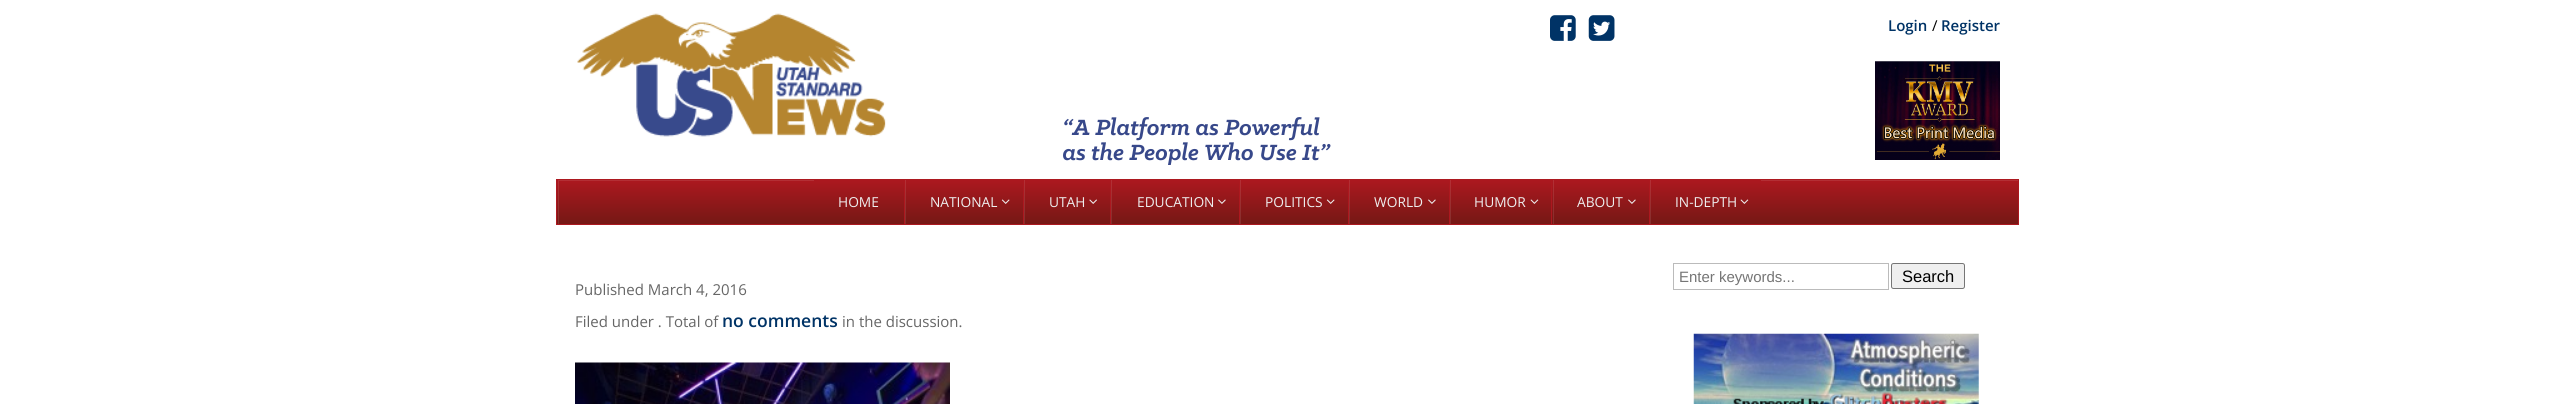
import math
import cairo


def round_path(ctx, x, y, w, h, r):
	ctx.new_sub_path()
	for i, (u, v) in enumerate([(x + w - r, y + h - r), (x + r, y + h - r), (x + r, y + r), (x + w - r, y + r)]):
		ctx.arc(u, v, r, i * math.pi / 2, (i + 1) * math.pi / 2)
	ctx.close_path()

def paste(ctx, path, x, y, w, h):
	ctx.save()
	ctx.set_source_surface(cairo.ImageSurface.create_from_png(path), x, y)
	ctx.rectangle(x, y, w, h)
	ctx.fill()
	ctx.restore()

def draw(ctx):
	ctx.set_source_rgb(1, 1, 1)
	ctx.paint()
	paste(ctx, 'media/1.png', 577, 13, 309, 124)
	paste(ctx, 'media/2.png', 1550, 15, 26, 26)
	paste(ctx, 'media/3.png', 1588, 15, 27, 26)
	paste(ctx, 'media/4.png', 1875, 61, 125, 99)
	ctx.select_font_face('Open Sans SemiBold')
	ctx.set_font_size(15)
	ctx.set_source_rgb(0, 0.2, 0.4)
	ctx.move_to(1888, 31)
	ctx.show_text('Login')
	ctx.select_font_face('Open Sans')
	ctx.set_source_rgb(0, 0, 0)
	ctx.move_to(1932, 31)
	ctx.show_text('/')
	ctx.select_font_face('Open Sans SemiBold')
	ctx.set_source_rgb(0, 0.2, 0.4)
	ctx.move_to(1941, 31)
	ctx.show_text('Register')
	paste(ctx, 'media/5.png', 1064, 117, 256, 24)
	paste(ctx, 'media/6.png', 1063, 142, 268, 23)
	gradient = cairo.LinearGradient(1288, 180, 1288, 224)
	gradient.add_color_stop_rgba(0, 0.675, 0.094, 0.122, 1)
	gradient.add_color_stop_rgba(1, 0.459, 0.094, 0.082, 1)
	ctx.set_source(gradient)
	ctx.rectangle(557, 180, 1461, 44)
	ctx.fill()
	ctx.save()
	ctx.rectangle(558, 180, 1460, 44)
	ctx.clip()
	ctx.set_source_rgba(1, 1, 1, 0.1)
	ctx.set_fill_rule(cairo.FILL_RULE_EVEN_ODD)
	ctx.new_path()
	ctx.move_to(434, 56)
	ctx.line_to(2141, 56)
	ctx.line_to(2141, 348)
	ctx.line_to(434, 348)
	ctx.close_path()
	ctx.move_to(559, 181)
	ctx.line_to(2019, 181)
	ctx.line_to(2019, 225)
	ctx.line_to(559, 225)
	ctx.close_path()
	ctx.fill()
	ctx.restore()
	ctx.rectangle(556.5, 179.5, 1462, 45)
	ctx.set_source_rgb(0.675, 0.094, 0.122)
	ctx.set_line_width(1)
	ctx.stroke()
	gradient = cairo.LinearGradient(859, 180, 859, 224)
	gradient.add_color_stop_rgba(0, 0.675, 0.094, 0.122, 1)
	gradient.add_color_stop_rgba(1, 0.459, 0.094, 0.082, 1)
	ctx.set_source(gradient)
	ctx.rectangle(814, 180, 90, 1)
	ctx.fill()
	ctx.select_font_face('Open Sans')
	ctx.set_font_size(13.75)
	ctx.set_source_rgb(0.933, 0.933, 0.933)
	ctx.move_to(838, 207)
	ctx.show_text('HOME')
	gradient = cairo.LinearGradient(964, 180, 964, 224)
	gradient.add_color_stop_rgba(0, 0.675, 0.094, 0.122, 1)
	gradient.add_color_stop_rgba(1, 0.459, 0.094, 0.082, 1)
	ctx.set_source(gradient)
	ctx.rectangle(905, 180, 118, 1)
	ctx.fill()
	ctx.set_source_rgba(1, 1, 1, 0.1)
	ctx.rectangle(905, 180, 1, 44)
	ctx.fill()
	ctx.set_source_rgb(0.675, 0.094, 0.122)
	ctx.rectangle(904, 180, 1, 44)
	ctx.fill()
	ctx.set_source_rgb(0.933, 0.933, 0.933)
	ctx.move_to(930, 207)
	ctx.show_text('NATIONAL')
	paste(ctx, 'media/7.png', 1001, 199, 9, 5)
	gradient = cairo.LinearGradient(1067, 180, 1067, 224)
	gradient.add_color_stop_rgba(0, 0.675, 0.094, 0.122, 1)
	gradient.add_color_stop_rgba(1, 0.459, 0.094, 0.082, 1)
	ctx.set_source(gradient)
	ctx.rectangle(1024, 180, 86, 1)
	ctx.fill()
	ctx.set_source_rgba(1, 1, 1, 0.1)
	ctx.rectangle(1024, 180, 1, 44)
	ctx.fill()
	ctx.set_source_rgb(0.675, 0.094, 0.122)
	ctx.rectangle(1023, 180, 1, 44)
	ctx.fill()
	ctx.set_source_rgb(0.933, 0.933, 0.933)
	ctx.move_to(1049, 207)
	ctx.show_text('UTAH')
	paste(ctx, 'media/8.png', 1089, 199, 8, 5)
	gradient = cairo.LinearGradient(1175, 180, 1175, 224)
	gradient.add_color_stop_rgba(0, 0.675, 0.094, 0.122, 1)
	gradient.add_color_stop_rgba(1, 0.459, 0.094, 0.082, 1)
	ctx.set_source(gradient)
	ctx.rectangle(1111, 180, 128, 1)
	ctx.fill()
	ctx.set_source_rgba(1, 1, 1, 0.1)
	ctx.rectangle(1111, 180, 1, 44)
	ctx.fill()
	ctx.set_source_rgb(0.675, 0.094, 0.122)
	ctx.rectangle(1110, 180, 1, 44)
	ctx.fill()
	ctx.set_source_rgb(0.933, 0.933, 0.933)
	ctx.move_to(1137, 207)
	ctx.show_text('EDUCATION')
	paste(ctx, 'media/9.png', 1218, 199, 8, 5)
	gradient = cairo.LinearGradient(1294, 180, 1294, 224)
	gradient.add_color_stop_rgba(0, 0.675, 0.094, 0.122, 1)
	gradient.add_color_stop_rgba(1, 0.459, 0.094, 0.082, 1)
	ctx.set_source(gradient)
	ctx.rectangle(1240, 180, 108, 1)
	ctx.fill()
	ctx.set_source_rgba(1, 1, 1, 0.1)
	ctx.rectangle(1240, 180, 1, 44)
	ctx.fill()
	ctx.set_source_rgb(0.675, 0.094, 0.122)
	ctx.rectangle(1239, 180, 1, 44)
	ctx.fill()
	ctx.set_source_rgb(0.933, 0.933, 0.933)
	ctx.move_to(1265, 207)
	ctx.show_text('POLITICS')
	paste(ctx, 'media/7.png', 1326, 199, 9, 5)
	gradient = cairo.LinearGradient(1399, 180, 1399, 224)
	gradient.add_color_stop_rgba(0, 0.675, 0.094, 0.122, 1)
	gradient.add_color_stop_rgba(1, 0.459, 0.094, 0.082, 1)
	ctx.set_source(gradient)
	ctx.rectangle(1349, 180, 100, 1)
	ctx.fill()
	ctx.set_source_rgba(1, 1, 1, 0.1)
	ctx.rectangle(1349, 180, 1, 44)
	ctx.fill()
	ctx.set_source_rgb(0.675, 0.094, 0.122)
	ctx.rectangle(1348, 180, 1, 44)
	ctx.fill()
	ctx.set_source_rgb(0.933, 0.933, 0.933)
	ctx.move_to(1374, 207)
	ctx.show_text('WORLD')
	paste(ctx, 'media/9.png', 1428, 199, 8, 5)
	gradient = cairo.LinearGradient(1501, 180, 1501, 224)
	gradient.add_color_stop_rgba(0, 0.675, 0.094, 0.122, 1)
	gradient.add_color_stop_rgba(1, 0.459, 0.094, 0.082, 1)
	ctx.set_source(gradient)
	ctx.rectangle(1450, 180, 101, 1)
	ctx.fill()
	ctx.set_source_rgba(1, 1, 1, 0.1)
	ctx.rectangle(1450, 180, 1, 44)
	ctx.fill()
	ctx.set_source_rgb(0.675, 0.094, 0.122)
	ctx.rectangle(1449, 180, 1, 44)
	ctx.fill()
	ctx.set_source_rgb(0.933, 0.933, 0.933)
	ctx.move_to(1474, 207)
	ctx.show_text('HUMOR')
	paste(ctx, 'media/10.png', 1530, 199, 9, 5)
	gradient = cairo.LinearGradient(1601, 180, 1601, 224)
	gradient.add_color_stop_rgba(0, 0.675, 0.094, 0.122, 1)
	gradient.add_color_stop_rgba(1, 0.459, 0.094, 0.082, 1)
	ctx.set_source(gradient)
	ctx.rectangle(1552, 180, 97, 1)
	ctx.fill()
	ctx.set_source_rgba(1, 1, 1, 0.1)
	ctx.rectangle(1553, 180, 1, 44)
	ctx.fill()
	ctx.set_source_rgb(0.675, 0.094, 0.122)
	ctx.rectangle(1551, 180, 1, 44)
	ctx.fill()
	ctx.set_source_rgb(0.933, 0.933, 0.933)
	ctx.move_to(1577, 207)
	ctx.show_text('ABOUT')
	paste(ctx, 'media/9.png', 1628, 199, 8, 5)
	gradient = cairo.LinearGradient(1706, 180, 1706, 224)
	gradient.add_color_stop_rgba(0, 0.675, 0.094, 0.122, 1)
	gradient.add_color_stop_rgba(1, 0.459, 0.094, 0.082, 1)
	ctx.set_source(gradient)
	ctx.rectangle(1650, 180, 111, 1)
	ctx.fill()
	ctx.set_source_rgba(1, 1, 1, 0.1)
	ctx.rectangle(1650, 180, 1, 44)
	ctx.fill()
	ctx.set_source_rgb(0.675, 0.094, 0.122)
	ctx.rectangle(1649, 180, 1, 44)
	ctx.fill()
	ctx.set_source_rgb(0.933, 0.933, 0.933)
	ctx.move_to(1675, 207)
	ctx.show_text('IN-DEPTH')
	paste(ctx, 'media/10.png', 1740, 199, 9, 5)
	ctx.rectangle(1673.5, 263.5, 215, 26)
	ctx.set_source_rgb(0.733, 0.733, 0.733)
	ctx.stroke()
	ctx.select_font_face('Liberation Sans')
	ctx.set_font_size(15)
	ctx.set_source_rgb(0.459, 0.459, 0.459)
	ctx.move_to(1679, 282)
	ctx.show_text('Enter keywords...')
	ctx.set_source_rgb(0.937, 0.937, 0.937)
	round_path(ctx, 1891.5, 263.5, 73, 25, 2)
	ctx.fill_preserve()
	ctx.set_source_rgb(0.463, 0.463, 0.463)
	ctx.stroke()
	ctx.set_font_size(16.5)
	ctx.set_source_rgb(0, 0, 0)
	ctx.move_to(1902, 282)
	ctx.show_text('Search')
	paste(ctx, 'media/11.png', 1693, 333, 286, 71)
	ctx.select_font_face('Open Sans')
	ctx.set_font_size(15)
	ctx.set_source_rgb(0.4, 0.4, 0.4)
	ctx.move_to(575, 295)
	ctx.show_text('Published March 4, 2016')
	ctx.move_to(575, 327)
	ctx.show_text('Filed under . Total of')
	ctx.select_font_face('Open Sans SemiBold')
	ctx.set_font_size(17.5)
	ctx.set_source_rgb(0, 0.2, 0.4)
	ctx.move_to(722, 327)
	ctx.show_text('no comments')
	ctx.select_font_face('Open Sans')
	ctx.set_font_size(15)
	ctx.set_source_rgb(0.4, 0.4, 0.4)
	ctx.move_to(842, 327)
	ctx.show_text('in the discussion.')
	paste(ctx, 'media/12.png', 575, 362, 375, 42)


surface = cairo.ImageSurface(cairo.FORMAT_RGB24, 2575, 404)
ctx = cairo.Context(surface)
options = cairo.FontOptions()
options.set_hint_metrics(cairo.HINT_METRICS_OFF)
options.set_hint_style(cairo.HINT_STYLE_NONE)
ctx.set_font_options(options)
ctx.set_miter_limit(4)
draw(ctx)
surface.write_to_png('image.png')
